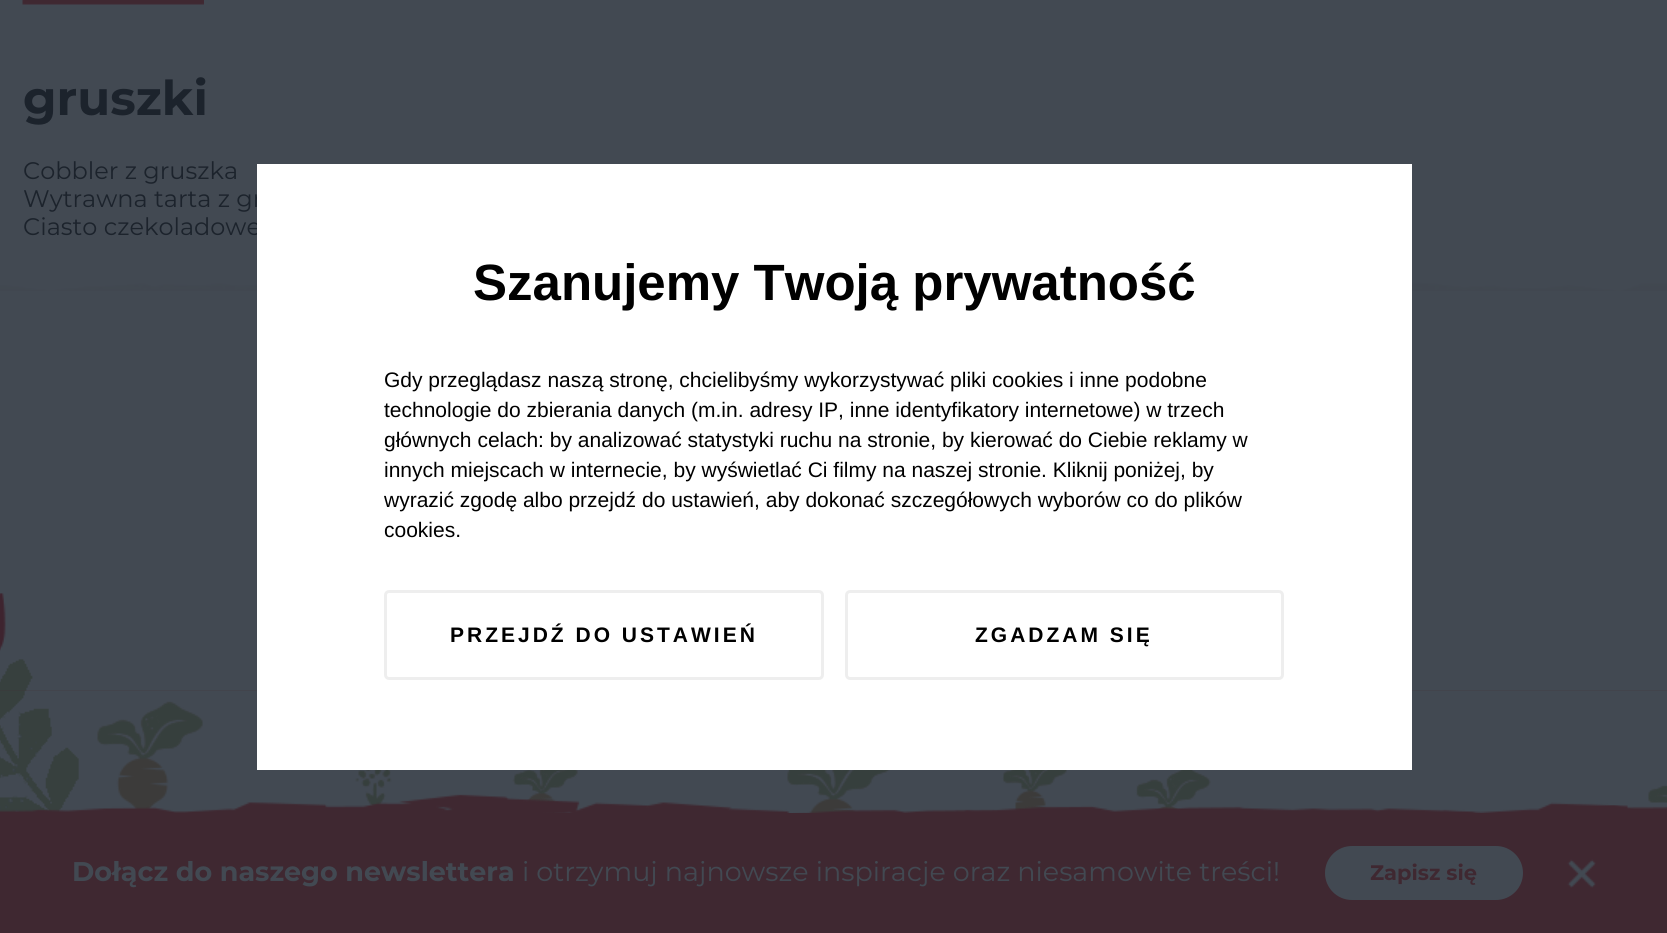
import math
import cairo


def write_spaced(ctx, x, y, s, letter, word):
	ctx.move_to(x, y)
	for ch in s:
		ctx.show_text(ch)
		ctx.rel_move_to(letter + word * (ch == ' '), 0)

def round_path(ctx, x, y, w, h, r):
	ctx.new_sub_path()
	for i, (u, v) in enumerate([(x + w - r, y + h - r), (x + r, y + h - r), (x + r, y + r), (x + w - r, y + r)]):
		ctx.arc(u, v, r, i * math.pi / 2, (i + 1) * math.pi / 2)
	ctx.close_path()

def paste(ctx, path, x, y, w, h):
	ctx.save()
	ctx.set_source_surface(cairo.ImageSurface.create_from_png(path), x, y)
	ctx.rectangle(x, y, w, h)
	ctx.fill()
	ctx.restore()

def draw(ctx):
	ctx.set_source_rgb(0.259, 0.286, 0.322)
	ctx.paint()
	paste(ctx, 'media/1.png', 22, 0, 182, 5)
	ctx.select_font_face('Montserrat', cairo.FONT_SLANT_NORMAL, cairo.FONT_WEIGHT_BOLD)
	ctx.set_font_size(48)
	ctx.set_source_rgb(0.11, 0.137, 0.173)
	ctx.move_to(23, 115)
	ctx.show_text('gruszki')
	ctx.select_font_face('Montserrat')
	ctx.set_font_size(24)
	for x, y, s in [
		(23, 179, 'Cobbler z gruszka'),
		(23, 207, 'Wytrawna tarta z gr'),
		(23, 235, 'Ciasto czekoladowe'),
	]:
		ctx.move_to(x, y)
		ctx.show_text(s)
	paste(ctx, 'media/2.png', 0, 593, 79, 219)
	paste(ctx, 'media/3.png', 0, 242, 1667, 49)
	paste(ctx, 'media/4.png', 0, 690, 1667, 123)
	ctx.set_source_rgb(1, 1, 1)
	ctx.rectangle(257, 164, 1155, 606)
	ctx.fill()
	ctx.select_font_face('Liberation Sans', cairo.FONT_SLANT_NORMAL, cairo.FONT_WEIGHT_BOLD)
	ctx.set_font_size(51)
	ctx.set_source_rgb(0, 0, 0)
	ctx.move_to(473, 300)
	ctx.show_text('Szanujemy Twoją prywatność')
	ctx.select_font_face('Liberation Sans')
	ctx.set_font_size(21)
	for x, y, s in [
		(384, 387, 'Gdy przeglądasz naszą stronę, chcielibyśmy wykorzystywać pliki cookies i inne podobne'),
		(384, 417, 'technologie do zbierania danych (m.in. adresy IP, inne identyfikatory internetowe) w trzech'),
		(384, 447, 'głównych celach: by analizować statystyki ruchu na stronie, by kierować do Ciebie reklamy w'),
		(384, 477, 'innych miejscach w internecie, by wyświetlać Ci filmy na naszej stronie. Kliknij poniżej, by'),
		(384, 507, 'wyrazić zgodę albo przejdź do ustawień, aby dokonać szczegółowych wyborów co do plików'),
		(384, 537, 'cookies.'),
	]:
		ctx.move_to(x, y)
		ctx.show_text(s)
	round_path(ctx, 385.5, 591.5, 437, 87, 3.5)
	ctx.set_source_rgb(0.933, 0.933, 0.933)
	ctx.set_line_width(3)
	ctx.stroke()
	ctx.select_font_face('Liberation Sans', cairo.FONT_SLANT_NORMAL, cairo.FONT_WEIGHT_BOLD)
	ctx.set_source_rgb(0, 0, 0)
	write_spaced(ctx, 450, 642, 'PRZEJDŹ DO USTAWIEŃ', 3, 0)
	round_path(ctx, 846.5, 591.5, 436, 87, 3.5)
	ctx.set_source_rgb(0.933, 0.933, 0.933)
	ctx.stroke()
	ctx.set_source_rgb(0, 0, 0)
	write_spaced(ctx, 975, 642, 'ZGADZAM SIĘ', 3, 0)
	ctx.set_source_rgb(0.247, 0.157, 0.192)
	ctx.rectangle(0, 813, 1667, 120)
	ctx.fill()
	paste(ctx, 'media/5.png', 0, 794, 1667, 19)
	ctx.select_font_face('Montserrat', cairo.FONT_SLANT_NORMAL, cairo.FONT_WEIGHT_BOLD)
	ctx.set_font_size(27)
	ctx.set_source_rgb(0.259, 0.286, 0.322)
	ctx.move_to(72, 881)
	ctx.show_text('Dołącz do naszego newslettera')
	ctx.select_font_face('Montserrat')
	ctx.move_to(522, 881)
	ctx.show_text('i otrzymuj najnowsze inspiracje oraz niesamowite treści!')
	round_path(ctx, 1325, 846, 198, 54, 27)
	ctx.fill()
	ctx.select_font_face('Montserrat', cairo.FONT_SLANT_NORMAL, cairo.FONT_WEIGHT_BOLD)
	ctx.set_font_size(21)
	ctx.set_source_rgb(0.247, 0.157, 0.192)
	ctx.move_to(1370, 880)
	ctx.show_text('Zapisz się')
	paste(ctx, 'media/6.png', 1567, 859, 29, 29)


surface = cairo.ImageSurface(cairo.FORMAT_RGB24, 1667, 933)
ctx = cairo.Context(surface)
options = cairo.FontOptions()
options.set_hint_metrics(cairo.HINT_METRICS_OFF)
options.set_hint_style(cairo.HINT_STYLE_NONE)
ctx.set_font_options(options)
ctx.set_miter_limit(4)
draw(ctx)
surface.write_to_png('image.png')
